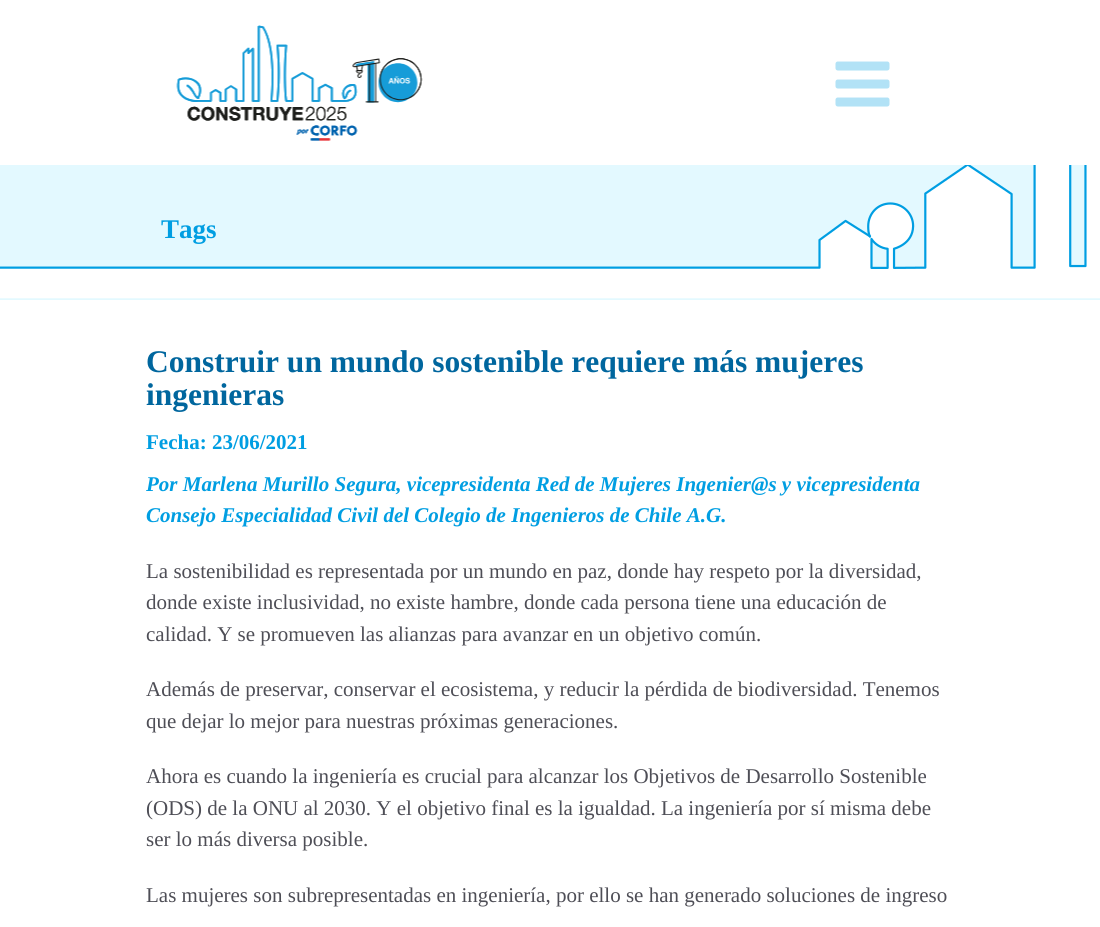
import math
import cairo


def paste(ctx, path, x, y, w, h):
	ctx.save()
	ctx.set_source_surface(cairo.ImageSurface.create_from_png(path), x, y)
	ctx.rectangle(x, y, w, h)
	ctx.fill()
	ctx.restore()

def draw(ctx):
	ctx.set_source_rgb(1, 1, 1)
	ctx.paint()
	paste(ctx, 'media/1.png', 176, 25, 247, 116)
	paste(ctx, 'media/2.png', 835, 61, 55, 46)
	ctx.set_source_rgb(0.89, 0.973, 1)
	ctx.rectangle(0, 165, 1100, 135)
	ctx.fill()
	paste(ctx, 'media/3.png', 0, 165, 1100, 134)
	ctx.select_font_face('Liberation Serif', cairo.FONT_SLANT_NORMAL, cairo.FONT_WEIGHT_BOLD)
	ctx.set_font_size(27)
	ctx.set_source_rgb(0, 0.62, 0.886)
	ctx.move_to(161, 238)
	ctx.show_text('Tags')
	ctx.set_font_size(31.5)
	ctx.set_source_rgb(0, 0.4, 0.62)
	ctx.move_to(146, 372)
	ctx.show_text('Construir un mundo sostenible requiere más mujeres')
	ctx.move_to(146, 405)
	ctx.show_text('ingenieras')
	ctx.set_font_size(21)
	ctx.set_source_rgb(0, 0.62, 0.886)
	ctx.move_to(146, 449)
	ctx.show_text('Fecha: 23/06/2021')
	ctx.select_font_face('Liberation Serif', cairo.FONT_SLANT_ITALIC, cairo.FONT_WEIGHT_BOLD)
	ctx.move_to(146, 491)
	ctx.show_text('Por Marlena Murillo Segura, vicepresidenta Red de Mujeres Ingenier@s y vicepresidenta')
	ctx.move_to(146, 522)
	ctx.show_text('Consejo Especialidad Civil del Colegio de Ingenieros de Chile A.G.')
	ctx.select_font_face('Liberation Serif')
	ctx.set_source_rgb(0.306, 0.306, 0.337)
	for x, y, s in [
		(146, 578, 'La sostenibilidad es representada por un mundo en paz, donde hay respeto por la diversidad,'),
		(146, 609, 'donde existe inclusividad, no existe hambre, donde cada persona tiene una educación de'),
		(146, 641, 'calidad. Y se promueven las alianzas para avanzar en un objetivo común.'),
		(146, 696, 'Además de preservar, conservar el ecosistema, y reducir la pérdida de biodiversidad. Tenemos'),
		(146, 728, 'que dejar lo mejor para nuestras próximas generaciones.'),
		(146, 783, 'Ahora es cuando la ingeniería es crucial para alcanzar los Objetivos de Desarrollo Sostenible'),
		(146, 815, '(ODS) de la ONU al 2030. Y el objetivo final es la igualdad. La ingeniería por sí misma debe'),
		(146, 846, 'ser lo más diversa posible.'),
		(146, 902, 'Las mujeres son subrepresentadas en ingeniería, por ello se han generado soluciones de ingreso'),
	]:
		ctx.move_to(x, y)
		ctx.show_text(s)


surface = cairo.ImageSurface(cairo.FORMAT_RGB24, 1100, 927)
ctx = cairo.Context(surface)
options = cairo.FontOptions()
options.set_hint_metrics(cairo.HINT_METRICS_OFF)
options.set_hint_style(cairo.HINT_STYLE_NONE)
ctx.set_font_options(options)
ctx.set_miter_limit(4)
draw(ctx)
surface.write_to_png('image.png')
